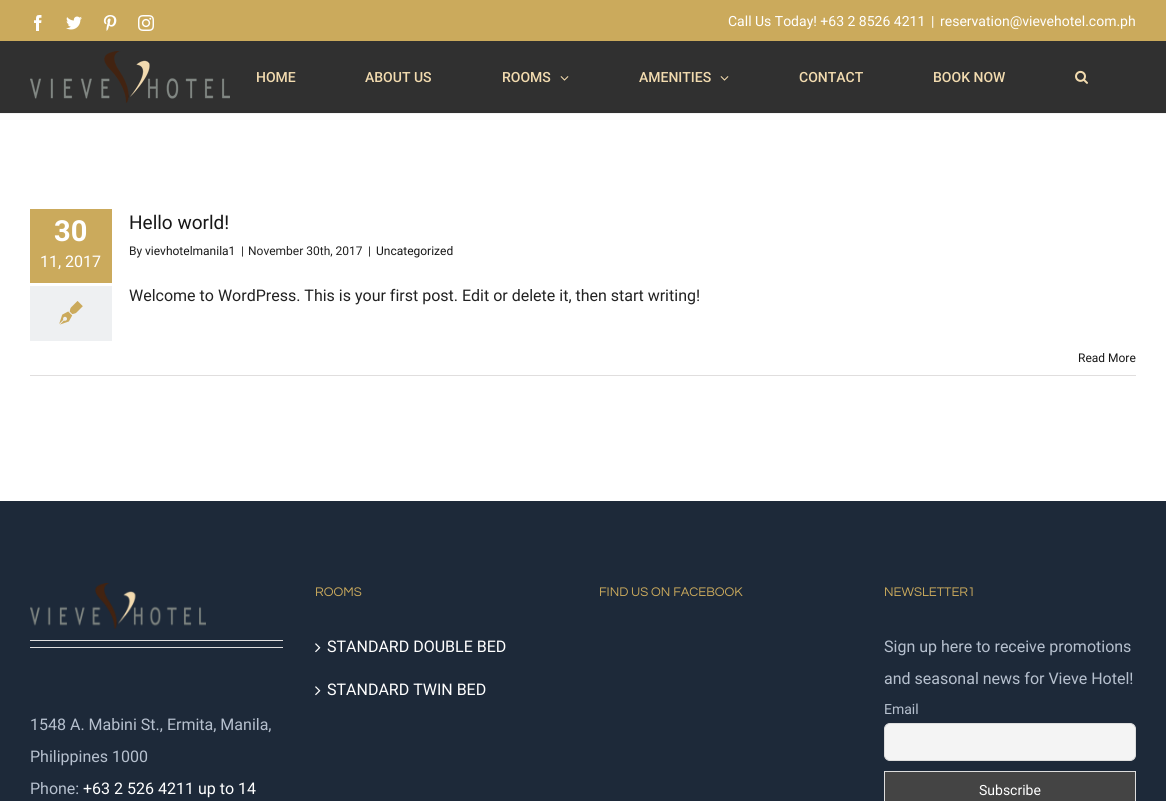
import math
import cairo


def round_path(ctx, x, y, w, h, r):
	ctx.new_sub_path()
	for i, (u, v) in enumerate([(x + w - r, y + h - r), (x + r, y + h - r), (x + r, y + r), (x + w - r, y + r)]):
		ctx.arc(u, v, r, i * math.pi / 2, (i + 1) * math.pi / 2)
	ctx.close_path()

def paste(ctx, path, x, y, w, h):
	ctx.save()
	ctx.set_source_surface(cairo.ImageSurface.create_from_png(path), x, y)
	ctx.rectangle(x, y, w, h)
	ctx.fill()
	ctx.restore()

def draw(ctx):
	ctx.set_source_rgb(1, 1, 1)
	ctx.paint()
	ctx.set_source_rgb(0.796, 0.667, 0.361)
	ctx.rectangle(0, 0, 1166, 41)
	ctx.fill()
	paste(ctx, 'media/1.png', 34, 15, 8, 16)
	paste(ctx, 'media/2.png', 66, 16, 16, 14)
	paste(ctx, 'media/3.png', 103, 15, 14, 16)
	paste(ctx, 'media/4.png', 138, 15, 16, 16)
	ctx.select_font_face('Roboto')
	ctx.set_font_size(14)
	ctx.set_source_rgb(1, 1, 1)
	for x, y, s in [
		(728, 26, 'Call Us Today! +63 2 8526 4211'),
		(931, 26, '|'),
		(940, 26, 'reservation@vievehotel.com.ph'),
	]:
		ctx.move_to(x, y)
		ctx.show_text(s)
	ctx.set_source_rgb(0.188, 0.188, 0.188)
	ctx.rectangle(0, 41, 1166, 72)
	ctx.fill()
	ctx.set_source_rgb(0.949, 0.949, 0.949)
	ctx.rectangle(0, 113, 1166, 1)
	ctx.fill()
	paste(ctx, 'media/5.png', 30, 51, 200, 52)
	ctx.select_font_face('Roboto Medium')
	ctx.set_source_rgb(0.949, 0.859, 0.686)
	for x, y, s in [
		(256, 82, 'HOME'),
		(365, 82, 'ABOUT US'),
		(502, 82, 'ROOMS'),
	]:
		ctx.move_to(x, y)
		ctx.show_text(s)
	paste(ctx, 'media/6.png', 560, 76, 9, 5)
	ctx.move_to(639, 82)
	ctx.show_text('AMENITIES')
	paste(ctx, 'media/6.png', 720, 76, 9, 5)
	ctx.move_to(799, 82)
	ctx.show_text('CONTACT')
	ctx.move_to(933, 82)
	ctx.show_text('BOOK NOW')
	paste(ctx, 'media/7.png', 1075, 70, 13, 14)
	ctx.set_source_rgb(0.796, 0.667, 0.361)
	ctx.rectangle(30, 209, 82, 74)
	ctx.fill()
	ctx.select_font_face('Roboto', cairo.FONT_SLANT_NORMAL, cairo.FONT_WEIGHT_BOLD)
	ctx.set_font_size(29)
	ctx.set_source_rgb(1, 1, 1)
	ctx.move_to(54, 241)
	ctx.show_text('30')
	ctx.select_font_face('Roboto')
	ctx.set_font_size(16)
	ctx.move_to(40, 267)
	ctx.show_text('11, 2017')
	ctx.set_source_rgb(0.933, 0.941, 0.949)
	ctx.rectangle(30, 286, 82, 55)
	ctx.fill()
	paste(ctx, 'media/8.png', 59, 301, 24, 24)
	ctx.set_font_size(19)
	ctx.set_source_rgb(0.09, 0.09, 0.09)
	ctx.move_to(129, 229)
	ctx.show_text('Hello world!')
	ctx.set_font_size(12)
	ctx.set_source_rgb(0.133, 0.133, 0.133)
	ctx.move_to(129, 255)
	ctx.show_text('By')
	ctx.set_source_rgb(0.09, 0.09, 0.09)
	ctx.move_to(145, 255)
	ctx.show_text('vievhotelmanila1')
	ctx.set_source_rgb(0.133, 0.133, 0.133)
	for x, y, s in [
		(241, 255, '|'),
		(248, 255, 'November 30th, 2017'),
		(368, 255, '|'),
	]:
		ctx.move_to(x, y)
		ctx.show_text(s)
	ctx.set_source_rgb(0.09, 0.09, 0.09)
	ctx.move_to(376, 255)
	ctx.show_text('Uncategorized')
	ctx.set_font_size(16)
	ctx.set_source_rgb(0.133, 0.133, 0.133)
	ctx.move_to(129, 301)
	ctx.show_text('Welcome to WordPress. This is your first post. Edit or delete it, then start writing!')
	ctx.set_source_rgb(0.878, 0.871, 0.871)
	ctx.rectangle(30, 375, 1106, 1)
	ctx.fill()
	ctx.set_font_size(12)
	ctx.set_source_rgb(0.09, 0.09, 0.09)
	ctx.move_to(1078, 362)
	ctx.show_text('Read More')
	ctx.set_source_rgb(0.114, 0.161, 0.224)
	ctx.rectangle(0, 501, 1166, 300)
	ctx.fill()
	paste(ctx, 'media/9.png', 30, 583, 176, 46)
	ctx.set_source_rgb(0.878, 0.871, 0.871)
	ctx.rectangle(30, 640, 253, 1)
	ctx.fill()
	ctx.rectangle(30, 647, 253, 1)
	ctx.fill()
	ctx.set_font_size(16)
	ctx.set_source_rgb(0.714, 0.753, 0.808)
	for x, y, s in [
		(30, 730, '1548 A. Mabini St., Ermita, Manila,'),
		(30, 762, 'Philippines 1000'),
		(30, 794, 'Phone:'),
	]:
		ctx.move_to(x, y)
		ctx.show_text(s)
	ctx.set_source_rgb(1, 1, 1)
	ctx.move_to(83, 794)
	ctx.show_text('+63 2 526 4211 up to 14')
	ctx.select_font_face('Questrial')
	ctx.set_font_size(13)
	ctx.set_source_rgb(0.796, 0.667, 0.361)
	ctx.move_to(315, 596)
	ctx.show_text('ROOMS')
	paste(ctx, 'media/10.png', 315, 643, 6, 10)
	ctx.select_font_face('Roboto')
	ctx.set_font_size(16)
	ctx.set_source_rgb(1, 1, 1)
	ctx.move_to(327, 652)
	ctx.show_text('STANDARD DOUBLE BED')
	paste(ctx, 'media/10.png', 315, 686, 6, 10)
	ctx.move_to(327, 695)
	ctx.show_text('STANDARD TWIN BED')
	ctx.select_font_face('Questrial')
	ctx.set_font_size(13)
	ctx.set_source_rgb(0.796, 0.667, 0.361)
	ctx.move_to(599, 596)
	ctx.show_text('FIND US ON FACEBOOK')
	ctx.move_to(884, 596)
	ctx.show_text('NEWSLETTER1')
	ctx.select_font_face('Roboto')
	ctx.set_font_size(16)
	ctx.set_source_rgb(0.714, 0.753, 0.808)
	ctx.move_to(884, 652)
	ctx.show_text('Sign up here to receive promotions')
	ctx.move_to(884, 684)
	ctx.show_text('and seasonal news for Vieve Hotel!')
	ctx.set_font_size(14)
	ctx.move_to(884, 714)
	ctx.show_text('Email')
	ctx.set_source_rgb(0.957, 0.957, 0.957)
	round_path(ctx, 884.5, 723.5, 251, 37, 5.5)
	ctx.fill_preserve()
	ctx.set_source_rgb(0.867, 0.867, 0.867)
	ctx.set_line_width(1)
	ctx.stroke()
	ctx.set_source_rgb(0.267, 0.267, 0.267)
	ctx.rectangle(884.5, 771.5, 251, 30)
	ctx.fill_preserve()
	ctx.set_source_rgb(0.867, 0.867, 0.867)
	ctx.stroke()
	ctx.set_source_rgb(1, 1, 1)
	ctx.move_to(979, 795)
	ctx.show_text('Subscribe')


surface = cairo.ImageSurface(cairo.FORMAT_RGB24, 1166, 801)
ctx = cairo.Context(surface)
options = cairo.FontOptions()
options.set_hint_metrics(cairo.HINT_METRICS_OFF)
options.set_hint_style(cairo.HINT_STYLE_NONE)
ctx.set_font_options(options)
ctx.set_miter_limit(4)
draw(ctx)
surface.write_to_png('image.png')
